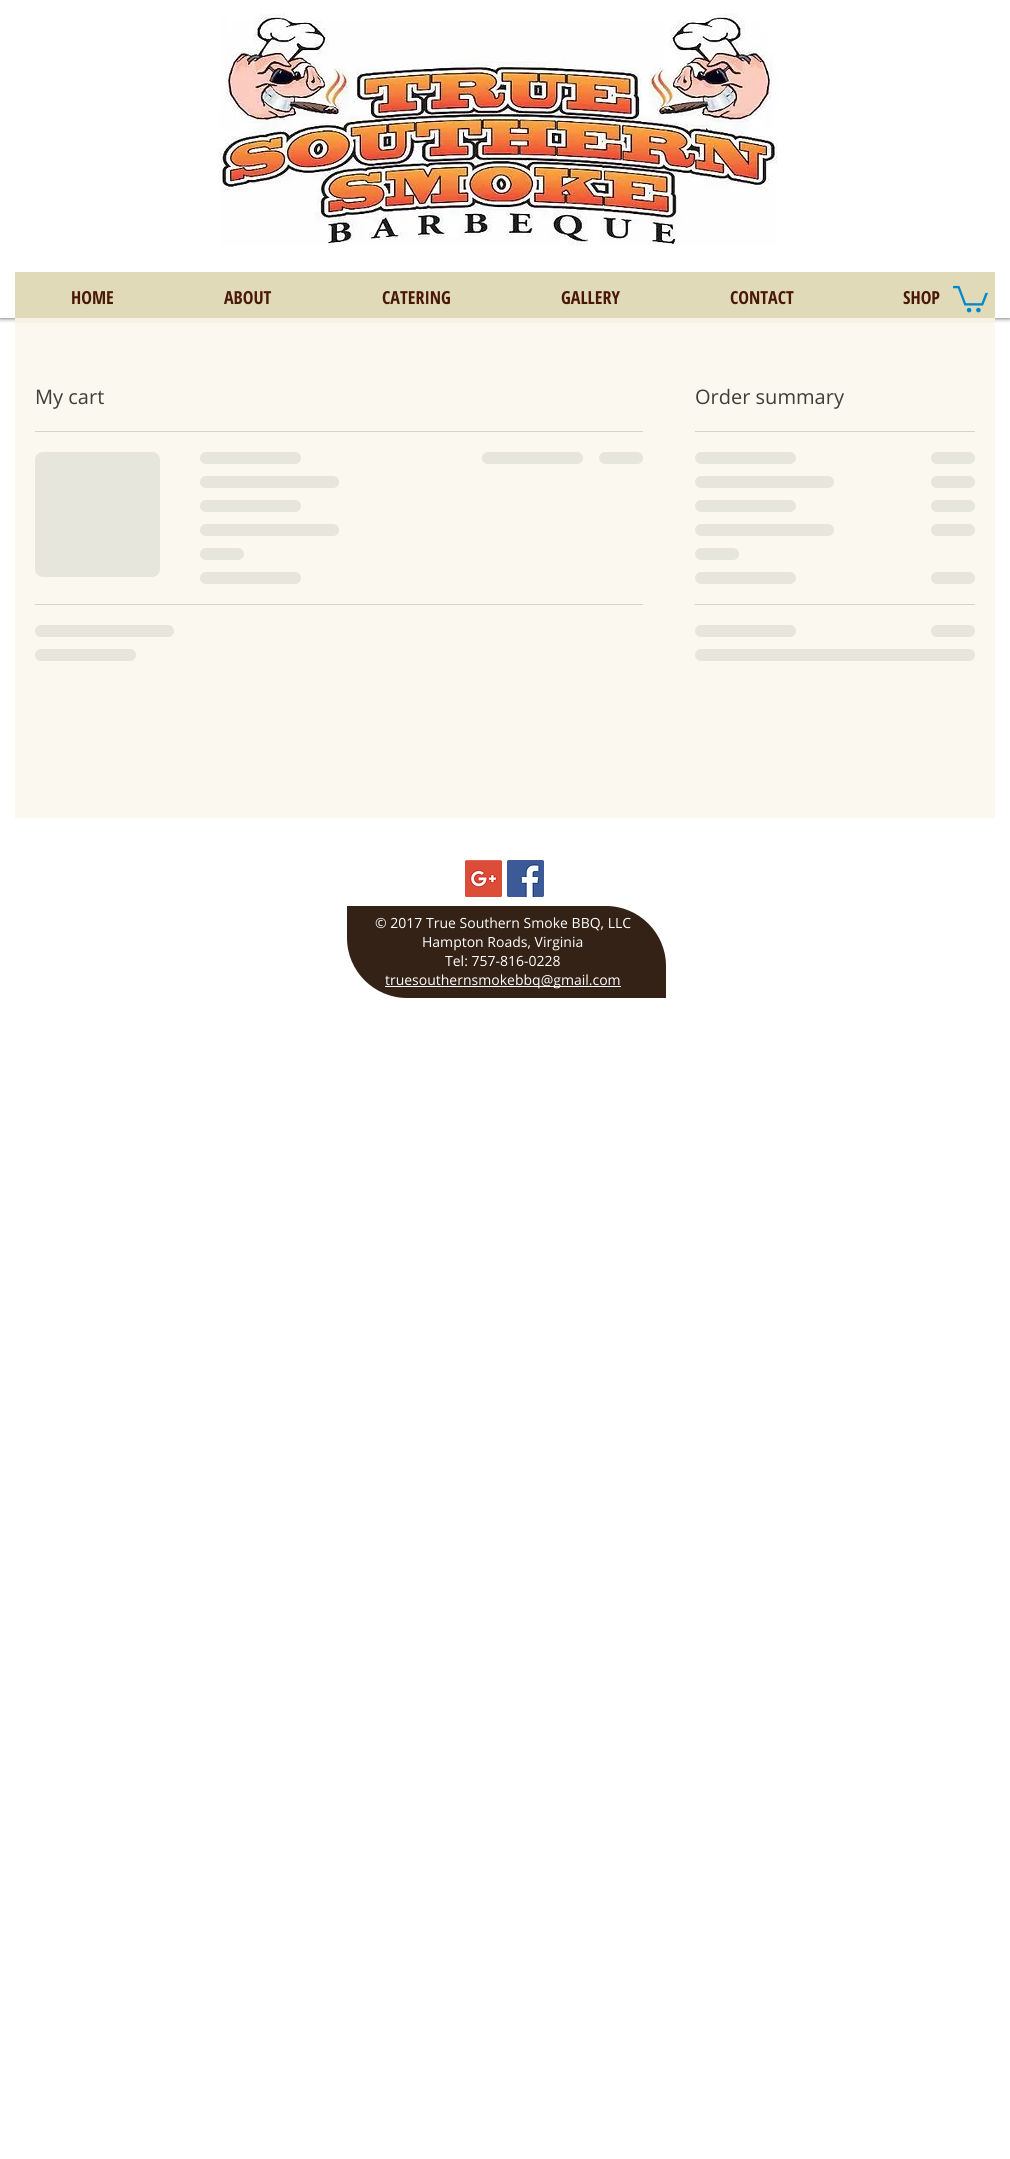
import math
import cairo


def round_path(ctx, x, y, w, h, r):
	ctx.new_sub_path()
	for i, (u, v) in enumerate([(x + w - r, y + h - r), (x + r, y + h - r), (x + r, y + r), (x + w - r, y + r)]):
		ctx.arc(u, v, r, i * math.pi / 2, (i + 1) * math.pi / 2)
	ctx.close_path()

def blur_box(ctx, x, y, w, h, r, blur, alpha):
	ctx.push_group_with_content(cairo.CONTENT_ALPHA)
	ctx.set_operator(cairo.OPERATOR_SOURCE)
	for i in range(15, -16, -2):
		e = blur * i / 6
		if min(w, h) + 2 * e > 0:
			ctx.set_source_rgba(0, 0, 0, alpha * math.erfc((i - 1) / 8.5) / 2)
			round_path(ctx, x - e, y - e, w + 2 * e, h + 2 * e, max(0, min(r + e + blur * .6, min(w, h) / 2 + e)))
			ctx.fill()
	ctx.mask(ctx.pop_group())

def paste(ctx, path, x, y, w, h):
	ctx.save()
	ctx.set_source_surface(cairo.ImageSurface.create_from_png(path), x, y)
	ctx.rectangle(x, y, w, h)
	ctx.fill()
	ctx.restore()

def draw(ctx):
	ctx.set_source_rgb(1, 1, 1)
	ctx.paint()
	ctx.save()
	ctx.rectangle(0, 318, 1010, 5)
	ctx.clip()
	ctx.set_source_rgb(0, 0, 0)
	blur_box(ctx, 0, 0, 1010, 318, 0, 2.5, 0.7)
	ctx.restore()
	paste(ctx, 'media/1.png', 217, 12, 561, 234)
	ctx.set_source_rgb(0.882, 0.855, 0.722)
	ctx.rectangle(15, 272, 980, 51)
	ctx.fill()
	ctx.select_font_face('Open Sans Condensed', cairo.FONT_SLANT_NORMAL, cairo.FONT_WEIGHT_BOLD)
	ctx.set_font_size(18)
	ctx.set_source_rgb(0.286, 0.098, 0.02)
	for x, y, s in [
		(71, 304, 'HOME'),
		(224, 304, 'ABOUT'),
		(382, 304, 'CATERING'),
		(561, 304, 'GALLERY'),
		(730, 304, 'CONTACT'),
		(903, 304, 'SHOP'),
	]:
		ctx.move_to(x, y)
		ctx.show_text(s)
	paste(ctx, 'media/2.png', 953, 285, 35, 28)
	ctx.set_source_rgba(0.976, 0.969, 0.925, 0.85)
	ctx.rectangle(15, 318, 980, 500)
	ctx.fill()
	ctx.set_source_rgb(0.835, 0.827, 0.792)
	ctx.rectangle(35, 431, 608, 1)
	ctx.fill()
	ctx.select_font_face('Open Sans')
	ctx.set_font_size(20)
	ctx.set_source_rgb(0.251, 0.243, 0.216)
	ctx.move_to(35, 404)
	ctx.show_text('My cart')
	gradient = cairo.LinearGradient(35, 515, 535, 515)
	gradient.add_color_stop_rgba(0.25, 0.906, 0.902, 0.863, 1)
	gradient.add_color_stop_rgba(0.37, 0.835, 0.827, 0.792, 1)
	gradient.add_color_stop_rgba(0.63, 0.906, 0.902, 0.863, 1)
	ctx.set_source(gradient)
	round_path(ctx, 35, 452, 125, 125, 8)
	ctx.fill()
	gradient = cairo.LinearGradient(200, 458, 604, 458)
	gradient.add_color_stop_rgba(0.25, 0.906, 0.902, 0.863, 1)
	gradient.add_color_stop_rgba(0.37, 0.835, 0.827, 0.792, 1)
	gradient.add_color_stop_rgba(0.63, 0.906, 0.902, 0.863, 1)
	ctx.set_source(gradient)
	round_path(ctx, 200, 452, 101, 12, 6)
	ctx.fill()
	gradient = cairo.LinearGradient(200, 482, 756, 482)
	gradient.add_color_stop_rgba(0.25, 0.906, 0.902, 0.863, 1)
	gradient.add_color_stop_rgba(0.37, 0.835, 0.827, 0.792, 1)
	gradient.add_color_stop_rgba(0.63, 0.906, 0.902, 0.863, 1)
	ctx.set_source(gradient)
	round_path(ctx, 200, 476, 139, 12, 6)
	ctx.fill()
	gradient = cairo.LinearGradient(200, 506, 604, 506)
	gradient.add_color_stop_rgba(0.25, 0.906, 0.902, 0.863, 1)
	gradient.add_color_stop_rgba(0.37, 0.835, 0.827, 0.792, 1)
	gradient.add_color_stop_rgba(0.63, 0.906, 0.902, 0.863, 1)
	ctx.set_source(gradient)
	round_path(ctx, 200, 500, 101, 12, 6)
	ctx.fill()
	gradient = cairo.LinearGradient(200, 530, 756, 530)
	gradient.add_color_stop_rgba(0.25, 0.906, 0.902, 0.863, 1)
	gradient.add_color_stop_rgba(0.37, 0.835, 0.827, 0.792, 1)
	gradient.add_color_stop_rgba(0.63, 0.906, 0.902, 0.863, 1)
	ctx.set_source(gradient)
	round_path(ctx, 200, 524, 139, 12, 6)
	ctx.fill()
	gradient = cairo.LinearGradient(200, 554, 376, 554)
	gradient.add_color_stop_rgba(0.25, 0.906, 0.902, 0.863, 1)
	gradient.add_color_stop_rgba(0.37, 0.835, 0.827, 0.792, 1)
	gradient.add_color_stop_rgba(0.63, 0.906, 0.902, 0.863, 1)
	ctx.set_source(gradient)
	round_path(ctx, 200, 548, 44, 12, 6)
	ctx.fill()
	gradient = cairo.LinearGradient(200, 578, 604, 578)
	gradient.add_color_stop_rgba(0.25, 0.906, 0.902, 0.863, 1)
	gradient.add_color_stop_rgba(0.37, 0.835, 0.827, 0.792, 1)
	gradient.add_color_stop_rgba(0.63, 0.906, 0.902, 0.863, 1)
	ctx.set_source(gradient)
	round_path(ctx, 200, 572, 101, 12, 6)
	ctx.fill()
	gradient = cairo.LinearGradient(482, 458, 886, 458)
	gradient.add_color_stop_rgba(0.25, 0.906, 0.902, 0.863, 1)
	gradient.add_color_stop_rgba(0.37, 0.835, 0.827, 0.792, 1)
	gradient.add_color_stop_rgba(0.63, 0.906, 0.902, 0.863, 1)
	ctx.set_source(gradient)
	round_path(ctx, 482, 452, 101, 12, 6)
	ctx.fill()
	gradient = cairo.LinearGradient(599, 458, 775, 458)
	gradient.add_color_stop_rgba(0.25, 0.906, 0.902, 0.863, 1)
	gradient.add_color_stop_rgba(0.37, 0.835, 0.827, 0.792, 1)
	gradient.add_color_stop_rgba(0.63, 0.906, 0.902, 0.863, 1)
	ctx.set_source(gradient)
	round_path(ctx, 599, 452, 44, 12, 6)
	ctx.fill()
	ctx.set_source_rgb(0.835, 0.827, 0.792)
	ctx.rectangle(35, 604, 608, 1)
	ctx.fill()
	gradient = cairo.LinearGradient(35, 631, 591, 631)
	gradient.add_color_stop_rgba(0.25, 0.906, 0.902, 0.863, 1)
	gradient.add_color_stop_rgba(0.37, 0.835, 0.827, 0.792, 1)
	gradient.add_color_stop_rgba(0.63, 0.906, 0.902, 0.863, 1)
	ctx.set_source(gradient)
	round_path(ctx, 35, 625, 139, 12, 6)
	ctx.fill()
	gradient = cairo.LinearGradient(35, 655, 439, 655)
	gradient.add_color_stop_rgba(0.25, 0.906, 0.902, 0.863, 1)
	gradient.add_color_stop_rgba(0.37, 0.835, 0.827, 0.792, 1)
	gradient.add_color_stop_rgba(0.63, 0.906, 0.902, 0.863, 1)
	ctx.set_source(gradient)
	round_path(ctx, 35, 649, 101, 12, 6)
	ctx.fill()
	ctx.set_source_rgb(0.835, 0.827, 0.792)
	ctx.rectangle(695, 431, 280, 1)
	ctx.fill()
	ctx.set_source_rgb(0.251, 0.243, 0.216)
	ctx.move_to(695, 404)
	ctx.show_text('Order summary')
	gradient = cairo.LinearGradient(695, 458, 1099, 458)
	gradient.add_color_stop_rgba(0.25, 0.906, 0.902, 0.863, 1)
	gradient.add_color_stop_rgba(0.37, 0.835, 0.827, 0.792, 1)
	gradient.add_color_stop_rgba(0.63, 0.906, 0.902, 0.863, 1)
	ctx.set_source(gradient)
	round_path(ctx, 695, 452, 101, 12, 6)
	ctx.fill()
	gradient = cairo.LinearGradient(931, 458, 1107, 458)
	gradient.add_color_stop_rgba(0.25, 0.906, 0.902, 0.863, 1)
	gradient.add_color_stop_rgba(0.37, 0.835, 0.827, 0.792, 1)
	gradient.add_color_stop_rgba(0.63, 0.906, 0.902, 0.863, 1)
	ctx.set_source(gradient)
	round_path(ctx, 931, 452, 44, 12, 6)
	ctx.fill()
	gradient = cairo.LinearGradient(695, 482, 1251, 482)
	gradient.add_color_stop_rgba(0.25, 0.906, 0.902, 0.863, 1)
	gradient.add_color_stop_rgba(0.37, 0.835, 0.827, 0.792, 1)
	gradient.add_color_stop_rgba(0.63, 0.906, 0.902, 0.863, 1)
	ctx.set_source(gradient)
	round_path(ctx, 695, 476, 139, 12, 6)
	ctx.fill()
	gradient = cairo.LinearGradient(931, 482, 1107, 482)
	gradient.add_color_stop_rgba(0.25, 0.906, 0.902, 0.863, 1)
	gradient.add_color_stop_rgba(0.37, 0.835, 0.827, 0.792, 1)
	gradient.add_color_stop_rgba(0.63, 0.906, 0.902, 0.863, 1)
	ctx.set_source(gradient)
	round_path(ctx, 931, 476, 44, 12, 6)
	ctx.fill()
	gradient = cairo.LinearGradient(695, 506, 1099, 506)
	gradient.add_color_stop_rgba(0.25, 0.906, 0.902, 0.863, 1)
	gradient.add_color_stop_rgba(0.37, 0.835, 0.827, 0.792, 1)
	gradient.add_color_stop_rgba(0.63, 0.906, 0.902, 0.863, 1)
	ctx.set_source(gradient)
	round_path(ctx, 695, 500, 101, 12, 6)
	ctx.fill()
	gradient = cairo.LinearGradient(931, 506, 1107, 506)
	gradient.add_color_stop_rgba(0.25, 0.906, 0.902, 0.863, 1)
	gradient.add_color_stop_rgba(0.37, 0.835, 0.827, 0.792, 1)
	gradient.add_color_stop_rgba(0.63, 0.906, 0.902, 0.863, 1)
	ctx.set_source(gradient)
	round_path(ctx, 931, 500, 44, 12, 6)
	ctx.fill()
	gradient = cairo.LinearGradient(695, 530, 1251, 530)
	gradient.add_color_stop_rgba(0.25, 0.906, 0.902, 0.863, 1)
	gradient.add_color_stop_rgba(0.37, 0.835, 0.827, 0.792, 1)
	gradient.add_color_stop_rgba(0.63, 0.906, 0.902, 0.863, 1)
	ctx.set_source(gradient)
	round_path(ctx, 695, 524, 139, 12, 6)
	ctx.fill()
	gradient = cairo.LinearGradient(931, 530, 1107, 530)
	gradient.add_color_stop_rgba(0.25, 0.906, 0.902, 0.863, 1)
	gradient.add_color_stop_rgba(0.37, 0.835, 0.827, 0.792, 1)
	gradient.add_color_stop_rgba(0.63, 0.906, 0.902, 0.863, 1)
	ctx.set_source(gradient)
	round_path(ctx, 931, 524, 44, 12, 6)
	ctx.fill()
	gradient = cairo.LinearGradient(695, 554, 871, 554)
	gradient.add_color_stop_rgba(0.25, 0.906, 0.902, 0.863, 1)
	gradient.add_color_stop_rgba(0.37, 0.835, 0.827, 0.792, 1)
	gradient.add_color_stop_rgba(0.63, 0.906, 0.902, 0.863, 1)
	ctx.set_source(gradient)
	round_path(ctx, 695, 548, 44, 12, 6)
	ctx.fill()
	gradient = cairo.LinearGradient(695, 578, 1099, 578)
	gradient.add_color_stop_rgba(0.25, 0.906, 0.902, 0.863, 1)
	gradient.add_color_stop_rgba(0.37, 0.835, 0.827, 0.792, 1)
	gradient.add_color_stop_rgba(0.63, 0.906, 0.902, 0.863, 1)
	ctx.set_source(gradient)
	round_path(ctx, 695, 572, 101, 12, 6)
	ctx.fill()
	gradient = cairo.LinearGradient(931, 578, 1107, 578)
	gradient.add_color_stop_rgba(0.25, 0.906, 0.902, 0.863, 1)
	gradient.add_color_stop_rgba(0.37, 0.835, 0.827, 0.792, 1)
	gradient.add_color_stop_rgba(0.63, 0.906, 0.902, 0.863, 1)
	ctx.set_source(gradient)
	round_path(ctx, 931, 572, 44, 12, 6)
	ctx.fill()
	ctx.set_source_rgb(0.835, 0.827, 0.792)
	ctx.rectangle(695, 604, 280, 1)
	ctx.fill()
	gradient = cairo.LinearGradient(695, 631, 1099, 631)
	gradient.add_color_stop_rgba(0.25, 0.906, 0.902, 0.863, 1)
	gradient.add_color_stop_rgba(0.37, 0.835, 0.827, 0.792, 1)
	gradient.add_color_stop_rgba(0.63, 0.906, 0.902, 0.863, 1)
	ctx.set_source(gradient)
	round_path(ctx, 695, 625, 101, 12, 6)
	ctx.fill()
	gradient = cairo.LinearGradient(931, 631, 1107, 631)
	gradient.add_color_stop_rgba(0.25, 0.906, 0.902, 0.863, 1)
	gradient.add_color_stop_rgba(0.37, 0.835, 0.827, 0.792, 1)
	gradient.add_color_stop_rgba(0.63, 0.906, 0.902, 0.863, 1)
	ctx.set_source(gradient)
	round_path(ctx, 931, 625, 44, 12, 6)
	ctx.fill()
	gradient = cairo.LinearGradient(695, 655, 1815, 655)
	gradient.add_color_stop_rgba(0.25, 0.906, 0.902, 0.863, 1)
	gradient.add_color_stop_rgba(0.37, 0.835, 0.827, 0.792, 1)
	gradient.add_color_stop_rgba(0.63, 0.906, 0.902, 0.863, 1)
	ctx.set_source(gradient)
	round_path(ctx, 695, 649, 280, 12, 6)
	ctx.fill()
	paste(ctx, 'media/3.png', 465, 860, 37, 37)
	paste(ctx, 'media/4.png', 507, 860, 37, 37)
	ctx.set_source_rgb(0.204, 0.133, 0.086)
	ctx.new_path()
	ctx.move_to(347, 906)
	ctx.line_to(606, 906)
	ctx.curve_to(639, 906, 666, 933, 666, 966)
	ctx.line_to(666, 998)
	ctx.line_to(407, 998)
	ctx.curve_to(374, 998, 347, 971, 347, 938)
	ctx.close_path()
	ctx.fill()
	ctx.set_font_size(14)
	ctx.set_source_rgb(1, 1, 1)
	for x, y, s in [
		(375, 928, '© 2017 True Southern Smoke BBQ, LLC'),
		(422, 947, 'Hampton Roads, Virginia'),
		(445, 966, 'Tel: 757-816-0228'),
	]:
		ctx.move_to(x, y)
		ctx.show_text(s)
	ctx.rectangle(385, 986, 236, 1)
	ctx.fill()
	ctx.move_to(385, 985)
	ctx.show_text('truesouthernsmokebbq@gmail.com')


surface = cairo.ImageSurface(cairo.FORMAT_RGB24, 1010, 2159)
ctx = cairo.Context(surface)
options = cairo.FontOptions()
options.set_hint_metrics(cairo.HINT_METRICS_OFF)
options.set_hint_style(cairo.HINT_STYLE_NONE)
ctx.set_font_options(options)
ctx.set_miter_limit(4)
draw(ctx)
surface.write_to_png('image.png')
